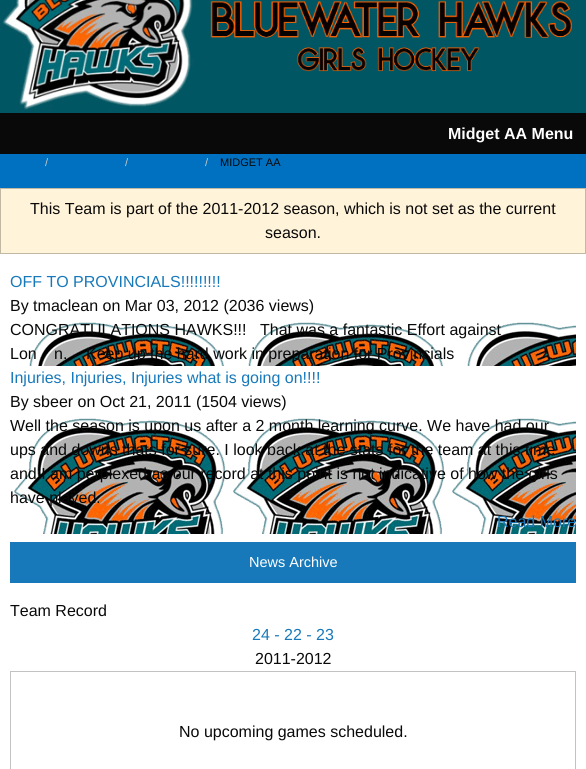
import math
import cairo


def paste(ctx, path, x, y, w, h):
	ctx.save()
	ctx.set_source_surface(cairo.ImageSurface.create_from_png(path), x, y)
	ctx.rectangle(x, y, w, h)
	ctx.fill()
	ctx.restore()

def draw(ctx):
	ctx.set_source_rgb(0, 0.439, 0.753)
	ctx.paint()
	ctx.set_source_rgb(0, 0.337, 0.388)
	ctx.rectangle(0, 0, 586, 113)
	ctx.fill()
	paste(ctx, 'media/1.png', 0, 0, 195, 111)
	paste(ctx, 'media/2.png', 210, 0, 363, 72)
	ctx.set_source_rgb(0.039, 0.039, 0.039)
	ctx.rectangle(0, 113, 586, 41)
	ctx.fill()
	ctx.select_font_face('Liberation Sans', cairo.FONT_SLANT_NORMAL, cairo.FONT_WEIGHT_BOLD)
	ctx.set_font_size(16)
	ctx.set_source_rgb(0.996, 0.996, 0.996)
	ctx.move_to(448, 139)
	ctx.show_text('Midget AA Menu')
	ctx.select_font_face('Liberation Sans')
	ctx.set_font_size(11)
	ctx.set_source_rgb(0.792, 0.792, 0.792)
	for x, y, s in [
		(45, 166, '/'),
		(125, 166, '/'),
		(205, 166, '/'),
	]:
		ctx.move_to(x, y)
		ctx.show_text(s)
	ctx.set_source_rgb(0.039, 0.039, 0.039)
	ctx.move_to(220, 166)
	ctx.show_text('MIDGET AA')
	ctx.set_source_rgb(1, 1, 1)
	ctx.rectangle(0, 254, 586, 515)
	ctx.fill()
	ctx.set_source_rgb(1, 0.953, 0.851)
	ctx.rectangle(0.5, 188.5, 585, 65)
	ctx.fill_preserve()
	ctx.set_source_rgb(0.761, 0.725, 0.647)
	ctx.set_line_width(1)
	ctx.stroke()
	ctx.set_font_size(16)
	ctx.set_source_rgb(0.039, 0.039, 0.039)
	ctx.move_to(30, 214)
	ctx.show_text('This Team is part of the 2011-2012 season, which is not set as the current')
	ctx.move_to(265, 238)
	ctx.show_text('season.')
	ctx.set_source_rgb(0.09, 0.475, 0.729)
	ctx.move_to(10, 287)
	ctx.show_text('OFF TO PROVINCIALS!!!!!!!!!')
	ctx.set_source_rgb(0.039, 0.039, 0.039)
	ctx.move_to(10, 311)
	ctx.show_text('By tmaclean on Mar 03, 2012 (2036 views)')
	paste(ctx, 'media/3.png', 29, 322, 547, 44)
	for x, y, s in [
		(10, 335, 'CONGRATULATIONS HAWKS!!!'),
		(260, 335, 'That was a fantastic Effort against'),
		(10, 359, 'Lon'),
		(54, 359, 'n.'),
		(86, 359, 'Keep up the hard work in preparation for Provincials'),
	]:
		ctx.move_to(x, y)
		ctx.show_text(s)
	ctx.set_source_rgb(0.09, 0.475, 0.729)
	ctx.move_to(10, 383)
	ctx.show_text('Injuries, Injuries, Injuries what is going on!!!!')
	ctx.set_source_rgb(0.039, 0.039, 0.039)
	ctx.move_to(10, 407)
	ctx.show_text('By sbeer on Oct 21, 2011 (1504 views)')
	paste(ctx, 'media/4.png', 14, 418, 562, 116)
	for x, y, s in [
		(10, 431, 'Well the season is upon us after a 2 month learning curve. We have had our'),
		(10, 455, 'ups and downs thats for sure. I look back at the stats for the team at this time'),
		(10, 479, 'and I am perplexed as our record at this point is not indicative of how the girls'),
		(10, 503, 'have played.'),
	]:
		ctx.move_to(x, y)
		ctx.show_text(s)
	ctx.set_source_rgb(0.09, 0.475, 0.729)
	ctx.move_to(497, 527)
	ctx.show_text('Read More')
	ctx.rectangle(10, 542, 566, 41)
	ctx.fill()
	ctx.set_font_size(14.5)
	ctx.set_source_rgb(0.996, 0.996, 0.996)
	ctx.move_to(249, 567)
	ctx.show_text('News Archive')
	ctx.set_font_size(16)
	ctx.set_source_rgb(0.039, 0.039, 0.039)
	ctx.move_to(10, 616)
	ctx.show_text('Team Record')
	ctx.set_source_rgb(0.09, 0.475, 0.729)
	ctx.move_to(252, 640)
	ctx.show_text('24 - 22 - 23')
	ctx.set_source_rgb(0.039, 0.039, 0.039)
	ctx.move_to(255, 664)
	ctx.show_text('2011-2012')
	ctx.rectangle(10.5, 671.5, 565, 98)
	ctx.set_source_rgb(0.761, 0.761, 0.761)
	ctx.stroke()
	ctx.set_source_rgb(0.039, 0.039, 0.039)
	ctx.move_to(179, 737)
	ctx.show_text('No upcoming games scheduled.')


surface = cairo.ImageSurface(cairo.FORMAT_RGB24, 586, 769)
ctx = cairo.Context(surface)
options = cairo.FontOptions()
options.set_hint_metrics(cairo.HINT_METRICS_OFF)
options.set_hint_style(cairo.HINT_STYLE_NONE)
ctx.set_font_options(options)
ctx.set_miter_limit(4)
draw(ctx)
surface.write_to_png('image.png')
